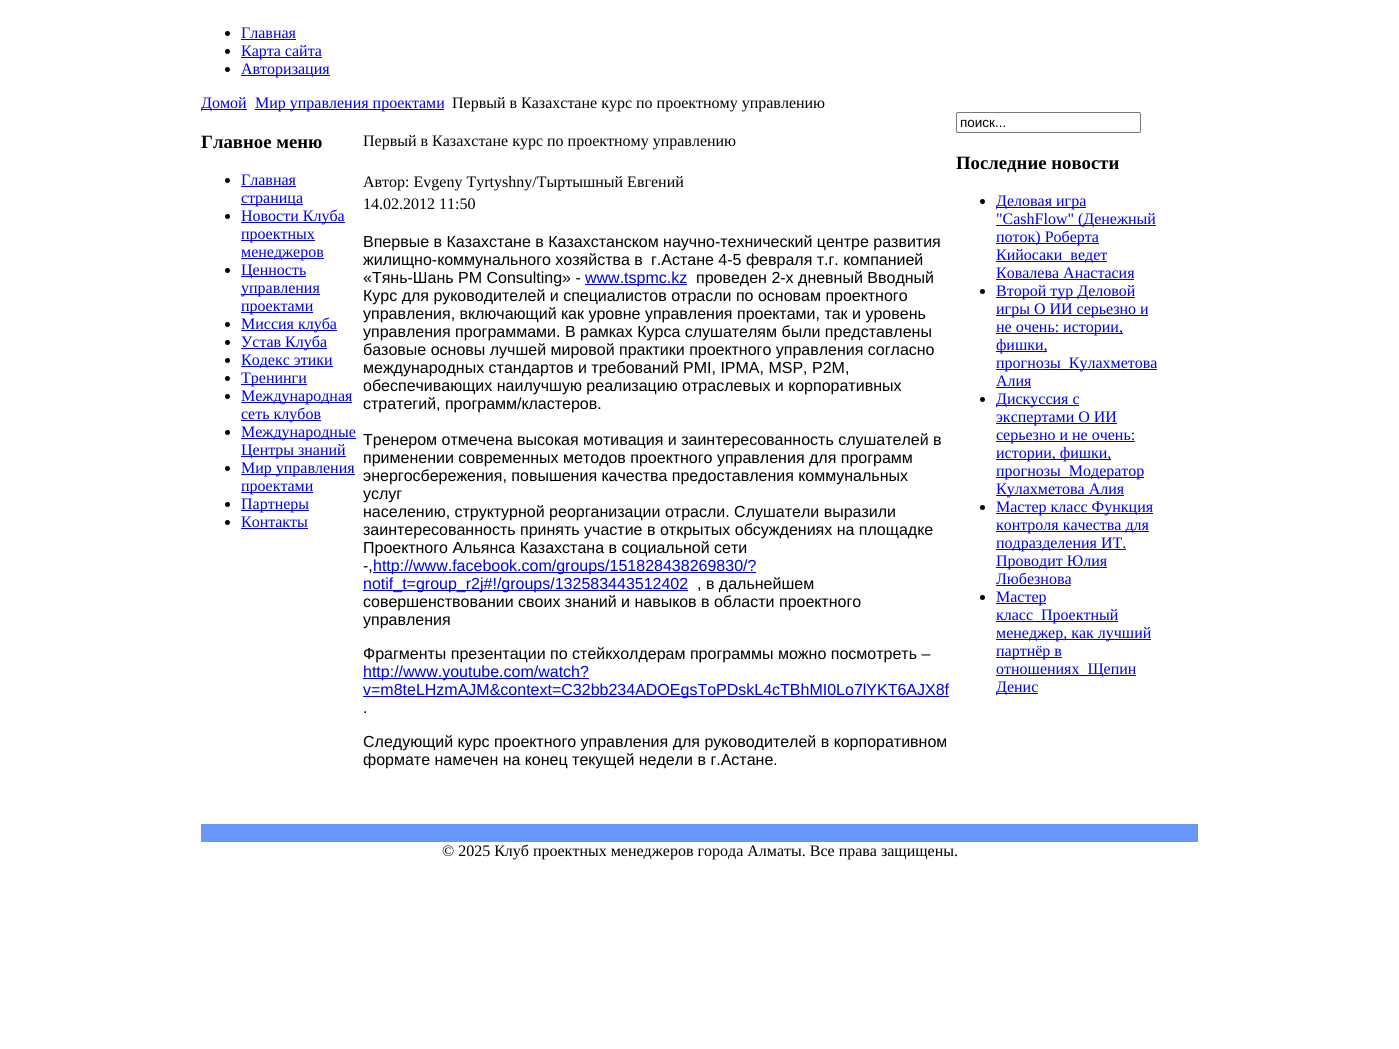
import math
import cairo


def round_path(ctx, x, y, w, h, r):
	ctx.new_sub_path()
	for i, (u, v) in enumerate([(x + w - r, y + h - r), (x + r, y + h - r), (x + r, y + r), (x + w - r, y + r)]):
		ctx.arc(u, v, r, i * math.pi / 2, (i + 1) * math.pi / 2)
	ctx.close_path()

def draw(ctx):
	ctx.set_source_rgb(1, 1, 1)
	ctx.paint()
	ctx.set_source_rgb(0, 0, 0)
	ctx.arc(227.5, 33.5, 2.5, 0, 2 * math.pi)
	ctx.fill()
	ctx.select_font_face('Liberation Serif')
	ctx.set_font_size(16)
	ctx.set_source_rgb(0, 0, 0.933)
	ctx.move_to(241, 38)
	ctx.show_text('Главная')
	ctx.rectangle(241, 39, 55, 1)
	ctx.fill()
	ctx.set_source_rgb(0, 0, 0)
	ctx.arc(227.5, 51.5, 2.5, 0, 2 * math.pi)
	ctx.fill()
	ctx.set_source_rgb(0, 0, 0.933)
	ctx.rectangle(241, 57, 81, 1)
	ctx.fill()
	ctx.move_to(241, 56)
	ctx.show_text('Карта сайта')
	ctx.set_source_rgb(0, 0, 0)
	ctx.new_path()
	ctx.arc(227.5, 69.5, 2.5, 0, 2 * math.pi)
	ctx.fill()
	ctx.set_source_rgb(0, 0, 0.933)
	ctx.rectangle(241, 75, 89, 1)
	ctx.fill()
	ctx.move_to(241, 74)
	ctx.show_text('Авторизация')
	ctx.rectangle(201, 109, 46, 1)
	ctx.fill()
	ctx.move_to(201, 108)
	ctx.show_text('Домой')
	ctx.rectangle(255, 109, 189, 1)
	ctx.fill()
	ctx.move_to(255, 108)
	ctx.show_text('Мир управления проектами')
	ctx.set_source_rgb(0, 0, 0)
	ctx.move_to(452, 108)
	ctx.show_text('Первый в Казахстане курс по проектному управлению')
	ctx.select_font_face('Liberation Serif', cairo.FONT_SLANT_NORMAL, cairo.FONT_WEIGHT_BOLD)
	ctx.set_font_size(18.75)
	ctx.move_to(201, 148)
	ctx.show_text('Главное меню')
	ctx.new_path()
	ctx.arc(227.5, 180.5, 2.5, 0, 2 * math.pi)
	ctx.fill()
	ctx.select_font_face('Liberation Serif')
	ctx.set_font_size(16)
	ctx.set_source_rgb(0, 0, 0.933)
	ctx.move_to(241, 185)
	ctx.show_text('Главная')
	ctx.rectangle(241, 186, 55, 1)
	ctx.fill()
	ctx.rectangle(241, 204, 62, 1)
	ctx.fill()
	ctx.move_to(241, 203)
	ctx.show_text('страница')
	ctx.set_source_rgb(0, 0, 0)
	ctx.new_path()
	ctx.arc(227.5, 216.5, 2.5, 0, 2 * math.pi)
	ctx.fill()
	ctx.set_source_rgb(0, 0, 0.933)
	ctx.rectangle(241, 222, 104, 1)
	ctx.fill()
	ctx.move_to(241, 221)
	ctx.show_text('Новости Клуба')
	ctx.rectangle(241, 240, 74, 1)
	ctx.fill()
	ctx.move_to(241, 239)
	ctx.show_text('проектных')
	ctx.rectangle(241, 258, 83, 1)
	ctx.fill()
	ctx.move_to(241, 257)
	ctx.show_text('менеджеров')
	ctx.set_source_rgb(0, 0, 0)
	ctx.new_path()
	ctx.arc(227.5, 270.5, 2.5, 0, 2 * math.pi)
	ctx.fill()
	ctx.set_source_rgb(0, 0, 0.933)
	ctx.rectangle(241, 276, 65, 1)
	ctx.fill()
	ctx.move_to(241, 275)
	ctx.show_text('Ценность')
	ctx.rectangle(241, 294, 79, 1)
	ctx.fill()
	ctx.move_to(241, 293)
	ctx.show_text('управления')
	ctx.rectangle(241, 312, 72, 1)
	ctx.fill()
	ctx.move_to(241, 311)
	ctx.show_text('проектами')
	ctx.set_source_rgb(0, 0, 0)
	ctx.new_path()
	ctx.arc(227.5, 324.5, 2.5, 0, 2 * math.pi)
	ctx.fill()
	ctx.set_source_rgb(0, 0, 0.933)
	ctx.rectangle(241, 330, 96, 1)
	ctx.fill()
	ctx.move_to(241, 329)
	ctx.show_text('Миссия клуба')
	ctx.set_source_rgb(0, 0, 0)
	ctx.new_path()
	ctx.arc(227.5, 342.5, 2.5, 0, 2 * math.pi)
	ctx.fill()
	ctx.set_source_rgb(0, 0, 0.933)
	ctx.rectangle(241, 348, 86, 1)
	ctx.fill()
	ctx.move_to(241, 347)
	ctx.show_text('Устав Клуба')
	ctx.set_source_rgb(0, 0, 0)
	ctx.new_path()
	ctx.arc(227.5, 360.5, 2.5, 0, 2 * math.pi)
	ctx.fill()
	ctx.set_source_rgb(0, 0, 0.933)
	ctx.rectangle(241, 366, 92, 1)
	ctx.fill()
	ctx.move_to(241, 365)
	ctx.show_text('Кодекс этики')
	ctx.set_source_rgb(0, 0, 0)
	ctx.new_path()
	ctx.arc(227.5, 378.5, 2.5, 0, 2 * math.pi)
	ctx.fill()
	ctx.set_source_rgb(0, 0, 0.933)
	ctx.rectangle(241, 384, 66, 1)
	ctx.fill()
	ctx.move_to(241, 383)
	ctx.show_text('Тренинги')
	ctx.set_source_rgb(0, 0, 0)
	ctx.new_path()
	ctx.arc(227.5, 396.5, 2.5, 0, 2 * math.pi)
	ctx.fill()
	ctx.set_source_rgb(0, 0, 0.933)
	ctx.rectangle(241, 402, 111, 1)
	ctx.fill()
	ctx.move_to(241, 401)
	ctx.show_text('Международная')
	ctx.rectangle(241, 420, 80, 1)
	ctx.fill()
	ctx.move_to(241, 419)
	ctx.show_text('сеть клубов')
	ctx.set_source_rgb(0, 0, 0)
	ctx.new_path()
	ctx.arc(227.5, 432.5, 2.5, 0, 2 * math.pi)
	ctx.fill()
	ctx.set_source_rgb(0, 0, 0.933)
	ctx.rectangle(241, 438, 115, 1)
	ctx.fill()
	ctx.move_to(241, 437)
	ctx.show_text('Международные')
	ctx.rectangle(241, 456, 105, 1)
	ctx.fill()
	ctx.move_to(241, 455)
	ctx.show_text('Центры знаний')
	ctx.set_source_rgb(0, 0, 0)
	ctx.new_path()
	ctx.arc(227.5, 468.5, 2.5, 0, 2 * math.pi)
	ctx.fill()
	ctx.set_source_rgb(0, 0, 0.933)
	ctx.rectangle(241, 474, 114, 1)
	ctx.fill()
	ctx.move_to(241, 473)
	ctx.show_text('Мир управления')
	ctx.rectangle(241, 492, 72, 1)
	ctx.fill()
	ctx.move_to(241, 491)
	ctx.show_text('проектами')
	ctx.set_source_rgb(0, 0, 0)
	ctx.new_path()
	ctx.arc(227.5, 504.5, 2.5, 0, 2 * math.pi)
	ctx.fill()
	ctx.set_source_rgb(0, 0, 0.933)
	ctx.rectangle(241, 510, 68, 1)
	ctx.fill()
	ctx.move_to(241, 509)
	ctx.show_text('Партнеры')
	ctx.set_source_rgb(0, 0, 0)
	ctx.new_path()
	ctx.arc(227.5, 522.5, 2.5, 0, 2 * math.pi)
	ctx.fill()
	ctx.set_source_rgb(0, 0, 0.933)
	ctx.move_to(241, 527)
	ctx.show_text('Контакты')
	ctx.rectangle(241, 528, 67, 1)
	ctx.fill()
	ctx.set_source_rgb(0, 0, 0)
	for x, y, s in [
		(363, 146, 'Первый в Казахстане курс по проектному управлению'),
		(363, 187, 'Автор: Evgeny Tyrtyshny/Тыртышный Евгений'),
		(363, 209, '14.02.2012 11:50'),
	]:
		ctx.move_to(x, y)
		ctx.show_text(s)
	ctx.select_font_face('Liberation Sans')
	for x, y, s in [
		(363, 247, 'Впервые в Казахстане в Казахстанском научно-технический центре развития'),
		(363, 265, 'жилищно-коммунального хозяйства в'),
		(651, 265, 'г.Астане 4-5 февраля т.г. компанией'),
		(363, 283, '«Тянь-Шань PM Consulting» -'),
	]:
		ctx.move_to(x, y)
		ctx.show_text(s)
	ctx.set_source_rgb(0, 0, 0.933)
	ctx.rectangle(585, 284, 102, 1)
	ctx.fill()
	ctx.move_to(585, 283)
	ctx.show_text('www.tspmc.kz')
	ctx.set_source_rgb(0, 0, 0)
	for x, y, s in [
		(696, 283, 'проведен 2-х дневный Вводный'),
		(363, 301, 'Курс для руководителей и специалистов отрасли по основам проектного'),
		(363, 319, 'управления, включающий как уровне управления проектами, так и уровень'),
		(363, 337, 'управления программами. В рамках Курса слушателям были представлены'),
		(363, 355, 'базовые основы лучшей мировой практики проектного управления согласно'),
		(363, 373, 'международных стандартов и требований PMI, IPMA, MSP, P2M,'),
		(363, 391, 'обеспечивающих наилучшую реализацию отраслевых и корпоративных'),
		(363, 409, 'стратегий, программ/кластеров.'),
		(363, 445, 'Тренером отмечена высокая мотивация и заинтересованность слушателей в'),
		(363, 463, 'применении современных методов проектного управления для программ'),
		(363, 481, 'энергосбережения, повышения качества предоставления коммунальных'),
		(363, 499, 'услуг'),
		(363, 517, 'населению, структурной реорганизации отрасли. Слушатели выразили'),
		(363, 535, 'заинтересованность принять участие в открытых обсуждениях на площадке'),
		(363, 553, 'Проектного Альянса Казахстана в социальной сети'),
		(363, 571, '-,'),
	]:
		ctx.move_to(x, y)
		ctx.show_text(s)
	ctx.set_source_rgb(0, 0, 0.933)
	ctx.rectangle(373, 572, 383, 1)
	ctx.fill()
	ctx.move_to(373, 571)
	ctx.show_text('http://www.facebook.com/groups/151828438269830/?')
	ctx.rectangle(363, 590, 325, 1)
	ctx.fill()
	ctx.move_to(363, 589)
	ctx.show_text('notif_t=group_r2j#!/groups/132583443512402')
	ctx.set_source_rgb(0, 0, 0)
	for x, y, s in [
		(697, 589, ', в дальнейшем'),
		(363, 607, 'совершенствовании своих знаний и навыков в области проектного'),
		(363, 625, 'управления'),
		(363, 659, 'Фрагменты презентации по стейкхолдерам программы можно посмотреть –'),
	]:
		ctx.move_to(x, y)
		ctx.show_text(s)
	ctx.set_source_rgb(0, 0, 0.933)
	ctx.rectangle(363, 678, 226, 1)
	ctx.fill()
	ctx.move_to(363, 677)
	ctx.show_text('http://www.youtube.com/watch?')
	ctx.rectangle(363, 696, 586, 1)
	ctx.fill()
	ctx.move_to(363, 695)
	ctx.show_text('v=m8teLHzmAJM&context=C32bb234ADOEgsToPDskL4cTBhMI0Lo7lYKT6AJX8f')
	ctx.set_source_rgb(0, 0, 0)
	for x, y, s in [
		(363, 713, '.'),
		(363, 747, 'Следующий курс проектного управления для руководителей в корпоративном'),
		(363, 765, 'формате намечен на конец текущей недели в г.Астане.'),
	]:
		ctx.move_to(x, y)
		ctx.show_text(s)
	round_path(ctx, 956.5, 112.5, 184, 20, 1.5)
	ctx.set_source_rgb(0.463, 0.463, 0.463)
	ctx.set_line_width(1)
	ctx.stroke()
	ctx.set_font_size(13.5)
	ctx.set_source_rgb(0, 0, 0)
	ctx.move_to(960, 127)
	ctx.show_text('поиск...')
	ctx.select_font_face('Liberation Serif', cairo.FONT_SLANT_NORMAL, cairo.FONT_WEIGHT_BOLD)
	ctx.set_font_size(18.75)
	ctx.move_to(956, 169)
	ctx.show_text('Последние новости')
	ctx.new_path()
	ctx.arc(982.5, 201.5, 2.5, 0, 2 * math.pi)
	ctx.fill()
	ctx.set_source_rgb(0, 0, 0.933)
	ctx.rectangle(996, 207, 90, 1)
	ctx.fill()
	ctx.select_font_face('Liberation Serif')
	ctx.set_font_size(16)
	ctx.move_to(996, 206)
	ctx.show_text('Деловая игра')
	ctx.rectangle(996, 225, 160, 1)
	ctx.fill()
	ctx.move_to(996, 224)
	ctx.show_text('"CashFlow" (Денежный')
	ctx.rectangle(996, 243, 103, 1)
	ctx.fill()
	ctx.move_to(996, 242)
	ctx.show_text('поток) Роберта')
	ctx.rectangle(996, 261, 111, 1)
	ctx.fill()
	ctx.move_to(996, 260)
	ctx.show_text('Кийосаки_ведет')
	ctx.move_to(996, 278)
	ctx.show_text('Ковалева Анастасия')
	ctx.rectangle(996, 279, 138, 1)
	ctx.fill()
	ctx.set_source_rgb(0, 0, 0)
	ctx.arc(982.5, 291.5, 2.5, 0, 2 * math.pi)
	ctx.fill()
	ctx.set_source_rgb(0, 0, 0.933)
	ctx.rectangle(996, 297, 139, 1)
	ctx.fill()
	ctx.move_to(996, 296)
	ctx.show_text('Второй тур Деловой')
	ctx.rectangle(996, 315, 152, 1)
	ctx.fill()
	ctx.move_to(996, 314)
	ctx.show_text('игры О ИИ серьезно и')
	ctx.rectangle(996, 333, 127, 1)
	ctx.fill()
	ctx.move_to(996, 332)
	ctx.show_text('не очень: истории,')
	ctx.rectangle(996, 351, 51, 1)
	ctx.fill()
	ctx.move_to(996, 350)
	ctx.show_text('фишки,')
	ctx.rectangle(996, 369, 161, 1)
	ctx.fill()
	ctx.move_to(996, 368)
	ctx.show_text('прогнозы_Кулахметова')
	ctx.move_to(996, 386)
	ctx.show_text('Алия')
	ctx.rectangle(996, 387, 35, 1)
	ctx.fill()
	ctx.set_source_rgb(0, 0, 0)
	ctx.arc(982.5, 399.5, 2.5, 0, 2 * math.pi)
	ctx.fill()
	ctx.set_source_rgb(0, 0, 0.933)
	ctx.rectangle(996, 405, 83, 1)
	ctx.fill()
	ctx.move_to(996, 404)
	ctx.show_text('Дискуссия с')
	ctx.rectangle(996, 423, 121, 1)
	ctx.fill()
	ctx.move_to(996, 422)
	ctx.show_text('экспертами О ИИ')
	ctx.rectangle(996, 441, 139, 1)
	ctx.fill()
	ctx.move_to(996, 440)
	ctx.show_text('серьезно и не очень:')
	ctx.rectangle(996, 459, 115, 1)
	ctx.fill()
	ctx.move_to(996, 458)
	ctx.show_text('истории, фишки,')
	ctx.rectangle(996, 477, 148, 1)
	ctx.fill()
	ctx.move_to(996, 476)
	ctx.show_text('прогнозы_Модератор')
	ctx.rectangle(996, 495, 128, 1)
	ctx.fill()
	ctx.move_to(996, 494)
	ctx.show_text('Кулахметова Алия')
	ctx.set_source_rgb(0, 0, 0)
	ctx.new_path()
	ctx.arc(982.5, 507.5, 2.5, 0, 2 * math.pi)
	ctx.fill()
	ctx.set_source_rgb(0, 0, 0.933)
	ctx.rectangle(996, 513, 157, 1)
	ctx.fill()
	ctx.move_to(996, 512)
	ctx.show_text('Мастер класс Функция')
	ctx.rectangle(996, 531, 153, 1)
	ctx.fill()
	ctx.move_to(996, 530)
	ctx.show_text('контроля качества для')
	ctx.rectangle(996, 549, 130, 1)
	ctx.fill()
	ctx.move_to(996, 548)
	ctx.show_text('подразделения ИТ.')
	ctx.rectangle(996, 567, 111, 1)
	ctx.fill()
	ctx.move_to(996, 566)
	ctx.show_text('Проводит Юлия')
	ctx.move_to(996, 584)
	ctx.show_text('Любезнова')
	ctx.rectangle(996, 585, 75, 1)
	ctx.fill()
	ctx.set_source_rgb(0, 0, 0)
	ctx.arc(982.5, 597.5, 2.5, 0, 2 * math.pi)
	ctx.fill()
	ctx.set_source_rgb(0, 0, 0.933)
	ctx.rectangle(996, 603, 50, 1)
	ctx.fill()
	ctx.move_to(996, 602)
	ctx.show_text('Мастер')
	ctx.rectangle(996, 621, 122, 1)
	ctx.fill()
	ctx.move_to(996, 620)
	ctx.show_text('класс_Проектный')
	ctx.rectangle(996, 639, 155, 1)
	ctx.fill()
	ctx.move_to(996, 638)
	ctx.show_text('менеджер, как лучший')
	ctx.rectangle(996, 657, 66, 1)
	ctx.fill()
	ctx.move_to(996, 656)
	ctx.show_text('партнёр в')
	ctx.rectangle(996, 675, 140, 1)
	ctx.fill()
	ctx.move_to(996, 674)
	ctx.show_text('отношениях_Щепин')
	ctx.rectangle(996, 693, 42, 1)
	ctx.fill()
	ctx.move_to(996, 692)
	ctx.show_text('Денис')
	ctx.set_source_rgb(0.408, 0.596, 0.996)
	ctx.rectangle(201, 824, 997, 18)
	ctx.fill()
	ctx.set_source_rgb(0, 0, 0)
	ctx.move_to(442, 856)
	ctx.show_text('© 2025 Клуб проектных менеджеров города Алматы. Все права защищены.')


surface = cairo.ImageSurface(cairo.FORMAT_RGB24, 1399, 1049)
ctx = cairo.Context(surface)
options = cairo.FontOptions()
options.set_hint_metrics(cairo.HINT_METRICS_OFF)
options.set_hint_style(cairo.HINT_STYLE_NONE)
ctx.set_font_options(options)
ctx.set_miter_limit(4)
draw(ctx)
surface.write_to_png('image.png')
